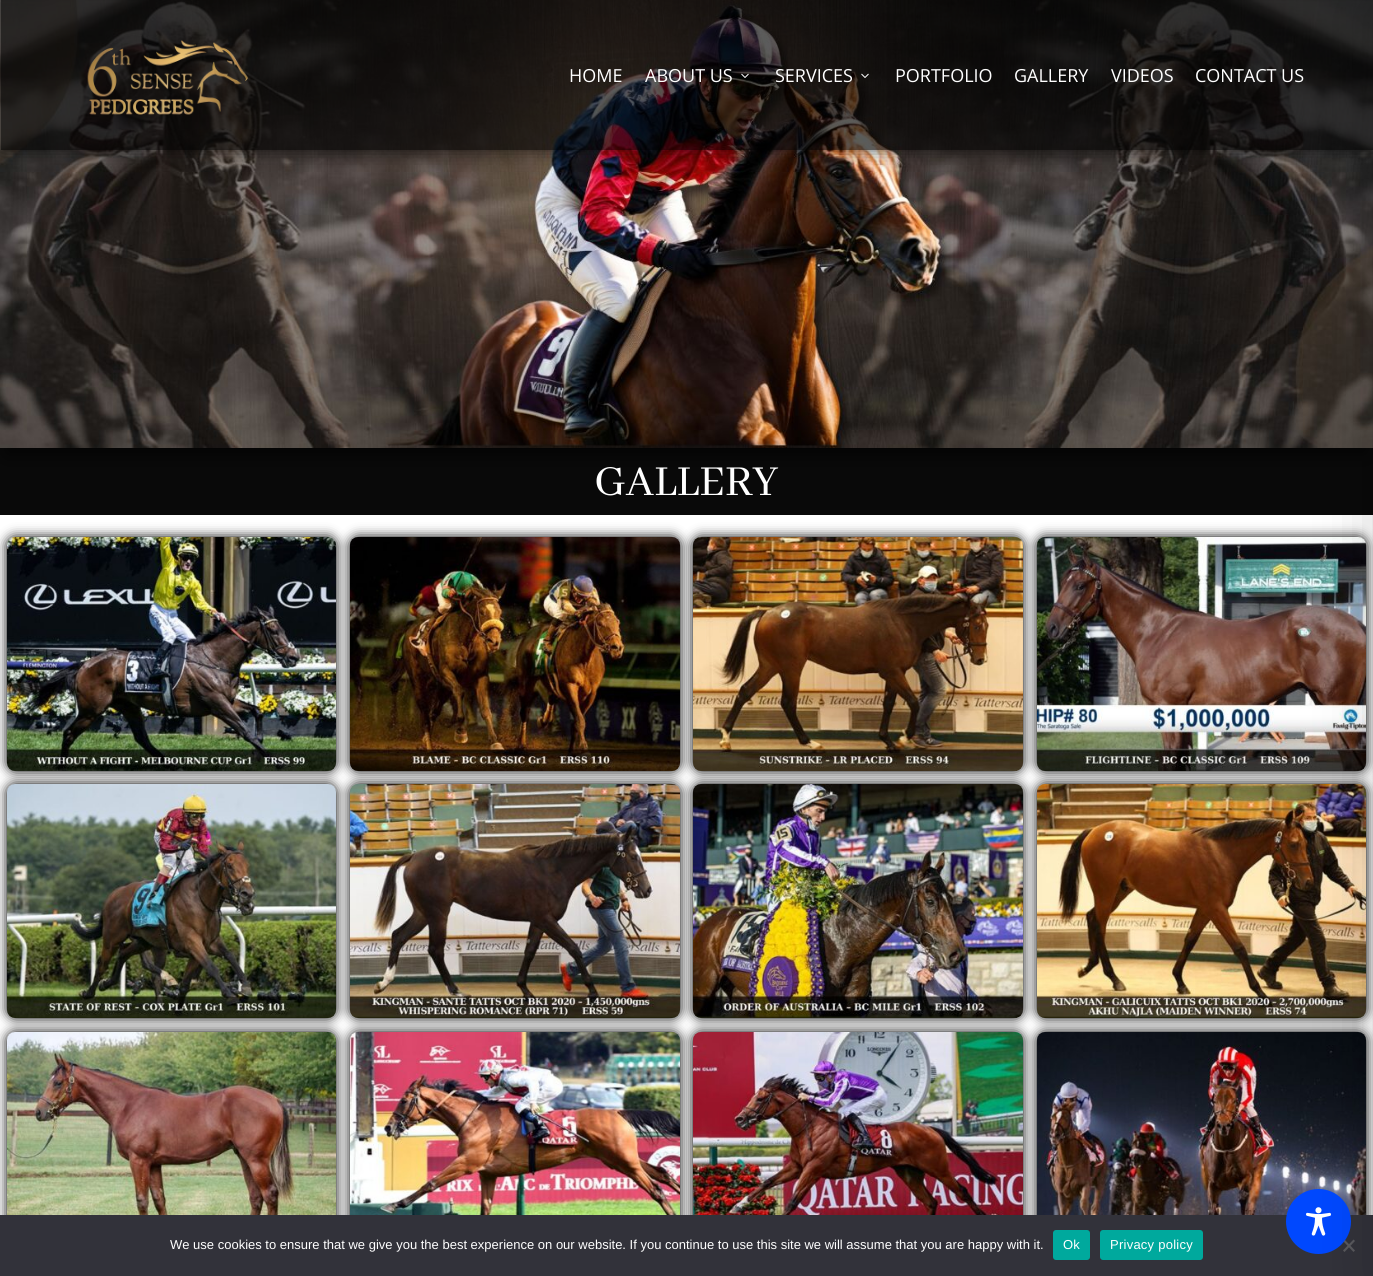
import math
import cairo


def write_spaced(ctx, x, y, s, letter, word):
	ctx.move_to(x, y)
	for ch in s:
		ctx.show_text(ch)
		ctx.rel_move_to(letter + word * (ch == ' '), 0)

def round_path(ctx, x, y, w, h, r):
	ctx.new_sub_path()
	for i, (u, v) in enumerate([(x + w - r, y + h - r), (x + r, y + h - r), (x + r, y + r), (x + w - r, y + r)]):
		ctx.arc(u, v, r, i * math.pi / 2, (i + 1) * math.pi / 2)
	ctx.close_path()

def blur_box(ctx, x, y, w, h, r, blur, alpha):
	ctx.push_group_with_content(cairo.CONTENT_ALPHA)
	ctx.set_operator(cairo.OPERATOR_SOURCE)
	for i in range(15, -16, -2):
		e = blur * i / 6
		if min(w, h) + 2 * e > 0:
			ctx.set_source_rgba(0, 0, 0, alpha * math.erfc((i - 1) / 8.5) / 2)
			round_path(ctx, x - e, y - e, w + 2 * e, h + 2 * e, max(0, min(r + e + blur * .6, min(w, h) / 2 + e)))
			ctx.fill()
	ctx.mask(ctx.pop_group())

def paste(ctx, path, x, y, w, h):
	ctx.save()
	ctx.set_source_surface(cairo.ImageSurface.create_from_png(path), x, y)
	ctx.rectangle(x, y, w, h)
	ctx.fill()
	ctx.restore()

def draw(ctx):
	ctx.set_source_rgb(1, 1, 1)
	ctx.paint()
	ctx.set_source_rgb(0.039, 0.039, 0.039)
	ctx.rectangle(0, 448, 1373, 67)
	ctx.fill()
	ctx.set_source_rgb(0, 0, 0)
	blur_box(ctx, 6, 18, 1361, 436, 0, 9, 0.72)
	paste(ctx, 'media/4.png', 0, 0, 1373, 448)
	ctx.save()
	ctx.set_fill_rule(cairo.FILL_RULE_EVEN_ODD)
	ctx.new_path()
	ctx.move_to(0, 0)
	ctx.line_to(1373, 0)
	ctx.line_to(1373, 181)
	ctx.line_to(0, 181)
	ctx.close_path()
	ctx.move_to(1, 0)
	ctx.line_to(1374, 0)
	ctx.line_to(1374, 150)
	ctx.line_to(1, 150)
	ctx.close_path()
	ctx.clip()
	blur_box(ctx, 1, 0, 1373, 150, 0, 10, 0.66)
	ctx.restore()
	ctx.set_source_rgba(0, 0, 0, 0.64)
	ctx.rectangle(1, 0, 1372, 150)
	ctx.fill()
	paste(ctx, 'media/1.png', 87, 40, 161, 75)
	ctx.select_font_face('Open Sans')
	ctx.set_font_size(18)
	ctx.set_source_rgb(1, 1, 1)
	ctx.move_to(569, 82)
	ctx.show_text('HOME')
	ctx.move_to(645, 82)
	ctx.show_text('ABOUT US')
	paste(ctx, 'media/2.png', 741, 73, 8, 5)
	ctx.move_to(775, 82)
	ctx.show_text('SERVICES')
	paste(ctx, 'media/3.png', 861, 73, 8, 5)
	for x, y, s in [
		(895, 82, 'PORTFOLIO'),
		(1014, 82, 'GALLERY'),
		(1111, 82, 'VIDEOS'),
		(1195, 82, 'CONTACT US'),
	]:
		ctx.move_to(x, y)
		ctx.show_text(s)
	ctx.select_font_face('Abhaya Libre')
	ctx.set_font_size(47)
	ctx.move_to(594, 495)
	ctx.show_text('GALLERY')
	ctx.set_source_rgb(0, 0, 0)
	blur_box(ctx, 7, 537, 329, 234, 8, 6, 1)
	paste(ctx, 'media/5.png', 7, 537, 329, 234)
	blur_box(ctx, 350, 537, 330, 234, 8, 6, 1)
	paste(ctx, 'media/6.png', 350, 537, 330, 234)
	blur_box(ctx, 693, 537, 330, 234, 8, 6, 1)
	paste(ctx, 'media/7.png', 693, 537, 330, 234)
	blur_box(ctx, 1037, 537, 329, 234, 8, 6, 1)
	paste(ctx, 'media/8.png', 1037, 537, 329, 234)
	blur_box(ctx, 7, 784, 329, 234, 8, 6, 1)
	paste(ctx, 'media/9.png', 7, 784, 329, 234)
	blur_box(ctx, 350, 784, 330, 234, 8, 6, 1)
	paste(ctx, 'media/10.png', 350, 784, 330, 234)
	blur_box(ctx, 693, 784, 330, 234, 8, 6, 1)
	paste(ctx, 'media/11.png', 693, 784, 330, 234)
	blur_box(ctx, 1037, 784, 329, 234, 8, 6, 1)
	paste(ctx, 'media/12.png', 1037, 784, 329, 234)
	blur_box(ctx, 7, 1032, 329, 234, 8, 6, 1)
	paste(ctx, 'media/13.png', 7, 1032, 329, 183)
	blur_box(ctx, 350, 1032, 330, 234, 8, 6, 1)
	paste(ctx, 'media/14.png', 350, 1032, 330, 183)
	blur_box(ctx, 693, 1032, 330, 234, 8, 6, 1)
	paste(ctx, 'media/15.png', 693, 1032, 330, 183)
	blur_box(ctx, 1037, 1032, 329, 234, 8, 6, 1)
	paste(ctx, 'media/16.png', 1037, 1032, 329, 183)
	ctx.set_source_rgb(0.196, 0.196, 0.227)
	ctx.rectangle(0, 1215, 1373, 61)
	ctx.fill()
	ctx.set_source_rgb(0.349, 0.349, 0.365)
	ctx.new_path()
	ctx.move_to(1353.5, 1239.5)
	ctx.line_to(1355, 1241)
	ctx.line_to(1344.5, 1252)
	ctx.line_to(1343, 1250.5)
	ctx.close_path()
	ctx.fill()
	ctx.new_path()
	ctx.move_to(1343, 1241)
	ctx.line_to(1344.5, 1239.5)
	ctx.line_to(1355, 1250.5)
	ctx.line_to(1353.5, 1252)
	ctx.close_path()
	ctx.fill()
	ctx.set_source_rgb(0, 0.282, 0.996)
	ctx.arc(1318.5, 1221.5, 32.5, 0, 2 * math.pi)
	ctx.fill()
	paste(ctx, 'media/17.png', 1306, 1207, 25, 29)
	ctx.set_source_rgb(0, 0, 0)
	blur_box(ctx, 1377, 10, 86, 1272, 0, 30, 0.2)
	ctx.select_font_face('Liberation Sans')
	ctx.set_font_size(13)
	ctx.set_source_rgb(1, 1, 1)
	ctx.move_to(170, 1249)
	ctx.show_text('We use cookies to ensure that we give you the best experience on our website. If you continue to use this site we will assume that you are happy with it.')
	ctx.set_source_rgb(0, 0.663, 0.616)
	round_path(ctx, 1053, 1230, 37, 30, 3)
	ctx.fill()
	ctx.set_source_rgb(1, 1, 1)
	write_spaced(ctx, 1063, 1249, 'Ok', 0.25, 0)
	ctx.set_source_rgb(0, 0.663, 0.616)
	round_path(ctx, 1100, 1230, 103, 30, 3)
	ctx.fill()
	ctx.set_source_rgb(1, 1, 1)
	write_spaced(ctx, 1110, 1249, 'Privacy policy', 0.25, 0)


surface = cairo.ImageSurface(cairo.FORMAT_RGB24, 1373, 1276)
ctx = cairo.Context(surface)
options = cairo.FontOptions()
options.set_hint_metrics(cairo.HINT_METRICS_OFF)
options.set_hint_style(cairo.HINT_STYLE_NONE)
ctx.set_font_options(options)
ctx.set_miter_limit(4)
draw(ctx)
surface.write_to_png('image.png')
